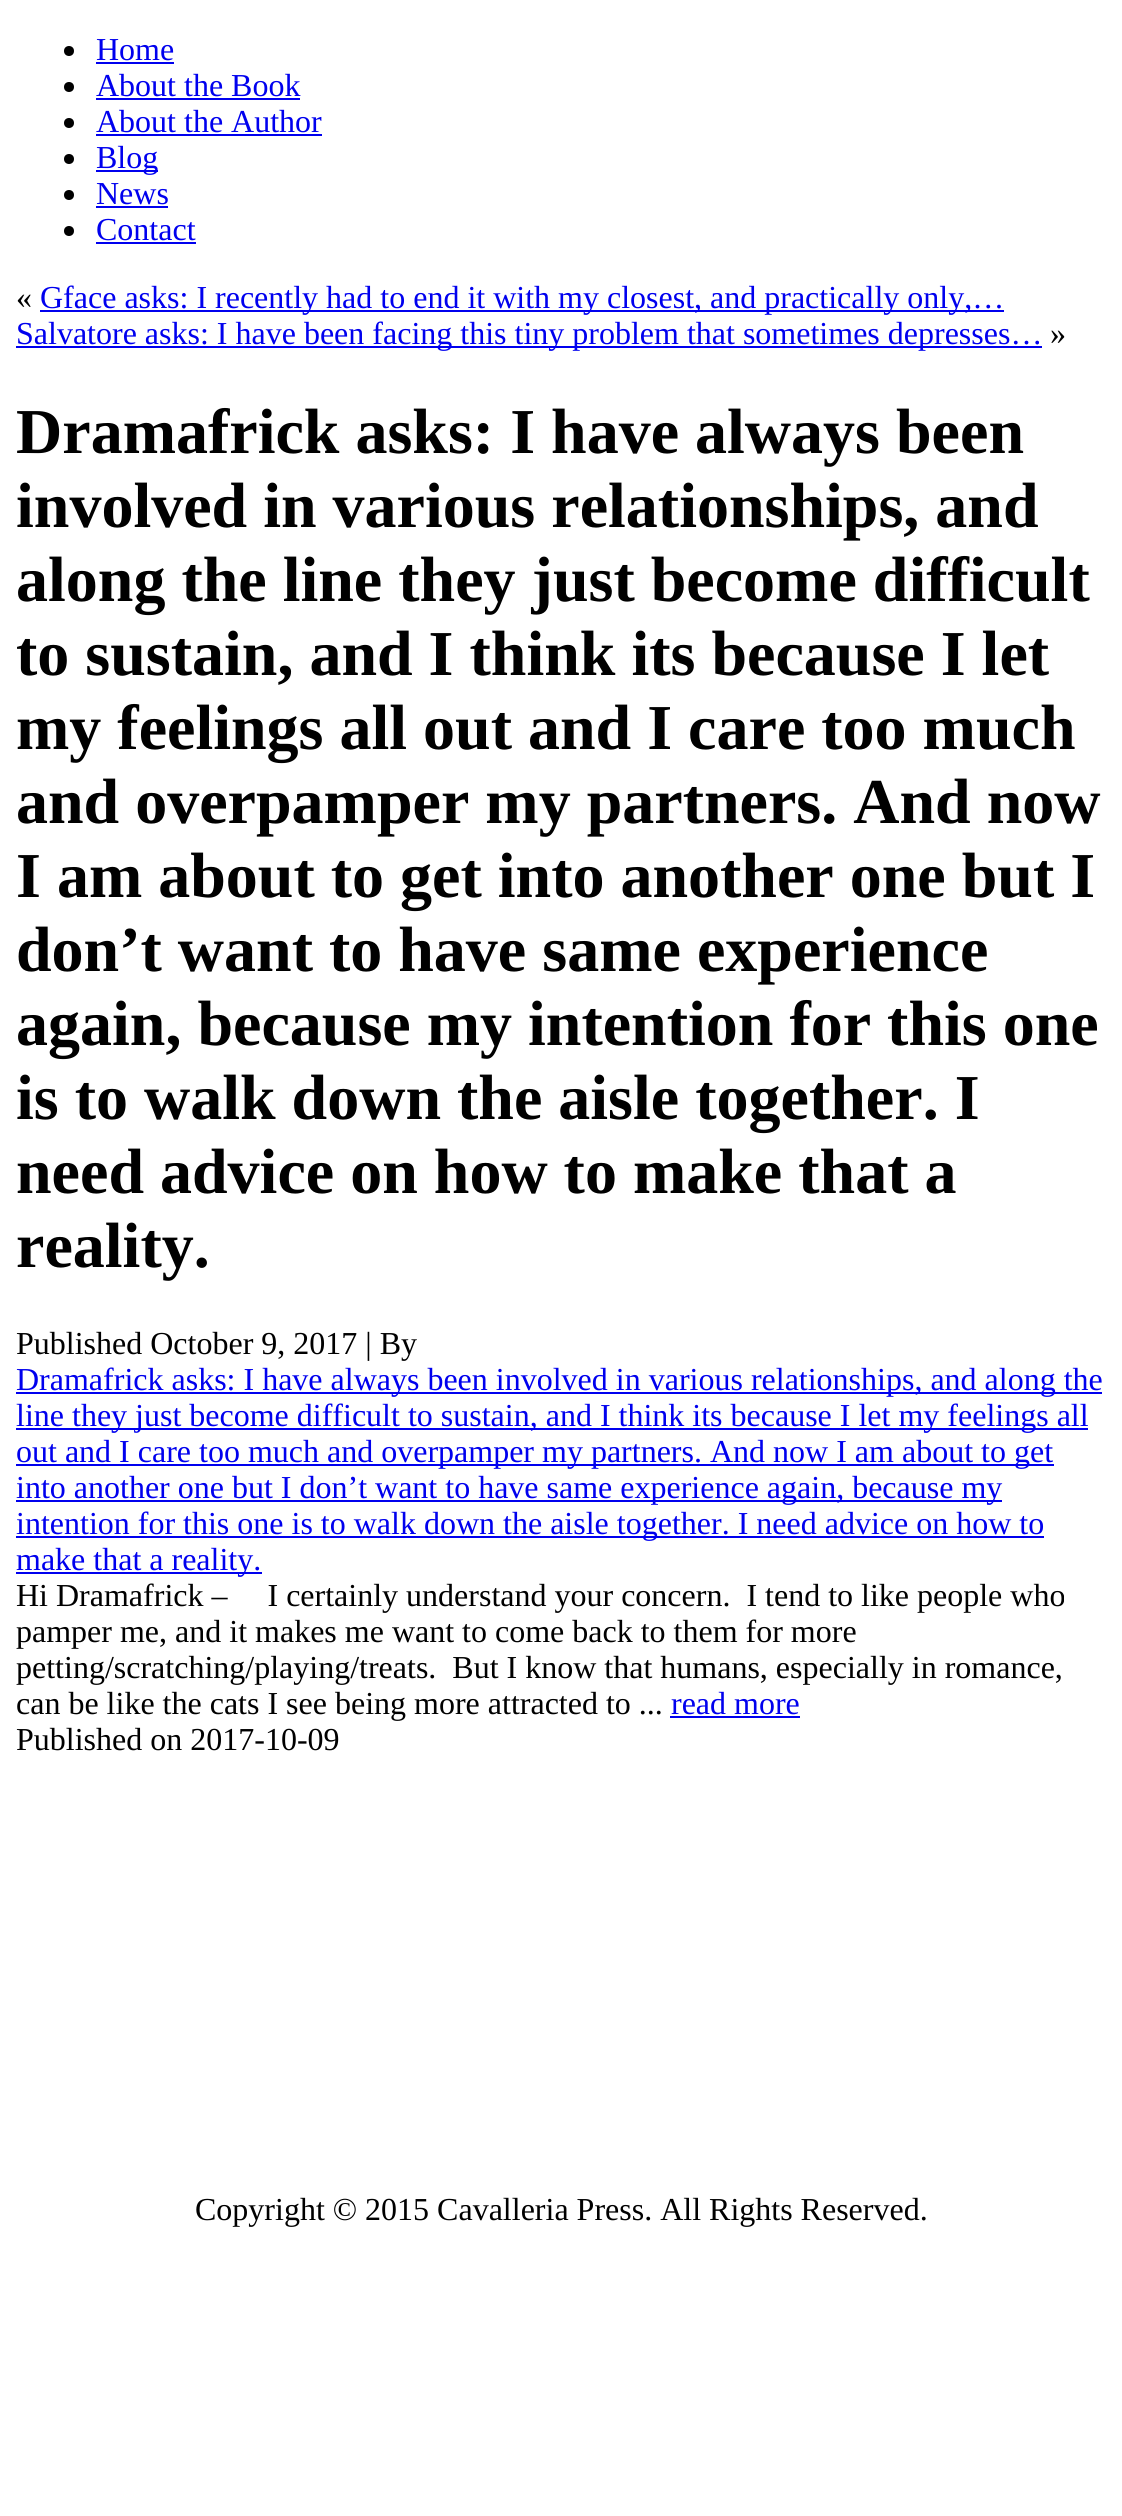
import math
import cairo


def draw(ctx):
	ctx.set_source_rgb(1, 1, 1)
	ctx.paint()
	ctx.set_source_rgb(0, 0, 0)
	ctx.arc(69, 51, 5, 0, 2 * math.pi)
	ctx.fill()
	ctx.select_font_face('Liberation Serif')
	ctx.set_font_size(32)
	ctx.set_source_rgb(0, 0, 0.933)
	ctx.move_to(96, 60)
	ctx.show_text('Home')
	ctx.rectangle(96, 62, 78, 2)
	ctx.fill()
	ctx.set_source_rgb(0, 0, 0)
	ctx.arc(69, 87, 5, 0, 2 * math.pi)
	ctx.fill()
	ctx.set_source_rgb(0, 0, 0.933)
	ctx.move_to(96, 96)
	ctx.show_text('About the Book')
	ctx.rectangle(96, 98, 204, 2)
	ctx.fill()
	ctx.set_source_rgb(0, 0, 0)
	ctx.arc(69, 123, 5, 0, 2 * math.pi)
	ctx.fill()
	ctx.set_source_rgb(0, 0, 0.933)
	ctx.move_to(96, 132)
	ctx.show_text('About the Author')
	ctx.rectangle(96, 134, 226, 2)
	ctx.fill()
	ctx.set_source_rgb(0, 0, 0)
	ctx.arc(69, 159, 5, 0, 2 * math.pi)
	ctx.fill()
	ctx.set_source_rgb(0, 0, 0.933)
	ctx.rectangle(96, 170, 62, 2)
	ctx.fill()
	ctx.move_to(96, 168)
	ctx.show_text('Blog')
	ctx.set_source_rgb(0, 0, 0)
	ctx.new_path()
	ctx.arc(69, 195, 5, 0, 2 * math.pi)
	ctx.fill()
	ctx.set_source_rgb(0, 0, 0.933)
	ctx.move_to(96, 204)
	ctx.show_text('News')
	ctx.rectangle(96, 206, 72, 2)
	ctx.fill()
	ctx.set_source_rgb(0, 0, 0)
	ctx.arc(69, 231, 5, 0, 2 * math.pi)
	ctx.fill()
	ctx.set_source_rgb(0, 0, 0.933)
	ctx.move_to(96, 240)
	ctx.show_text('Contact')
	ctx.rectangle(96, 242, 100, 2)
	ctx.fill()
	ctx.set_source_rgb(0, 0, 0)
	ctx.move_to(16, 308)
	ctx.show_text('«')
	ctx.set_source_rgb(0, 0, 0.933)
	ctx.rectangle(40, 310, 964, 2)
	ctx.fill()
	ctx.move_to(40, 308)
	ctx.show_text('Gface asks: I recently had to end it with my closest, and practically only,…')
	ctx.rectangle(16, 346, 1026, 2)
	ctx.fill()
	ctx.move_to(16, 344)
	ctx.show_text('Salvatore asks: I have been facing this tiny problem that sometimes depresses…')
	ctx.set_source_rgb(0, 0, 0)
	ctx.move_to(1050, 344)
	ctx.show_text('»')
	ctx.select_font_face('Liberation Serif', cairo.FONT_SLANT_NORMAL, cairo.FONT_WEIGHT_BOLD)
	ctx.set_font_size(64)
	for x, y, s in [
		(16, 453, 'Dramafrick asks: I have always been'),
		(16, 527, 'involved in various relationships, and'),
		(16, 601, 'along the line they just become difficult'),
		(16, 675, 'to sustain, and I think its because I let'),
		(16, 749, 'my feelings all out and I care too much'),
		(16, 823, 'and overpamper my partners. And now'),
		(16, 897, 'I am about to get into another one but I'),
		(16, 971, 'don’t want to have same experience'),
		(16, 1045, 'again, because my intention for this one'),
		(16, 1119, 'is to walk down the aisle together. I'),
		(16, 1193, 'need advice on how to make that a'),
		(16, 1267, 'reality.'),
	]:
		ctx.move_to(x, y)
		ctx.show_text(s)
	ctx.select_font_face('Liberation Serif')
	ctx.set_font_size(32)
	ctx.move_to(16, 1354)
	ctx.show_text('Published October 9, 2017 | By')
	ctx.set_source_rgb(0, 0, 0.933)
	ctx.rectangle(16, 1392, 1086, 2)
	ctx.fill()
	ctx.move_to(16, 1390)
	ctx.show_text('Dramafrick asks: I have always been involved in various relationships, and along the')
	ctx.rectangle(16, 1428, 1072, 2)
	ctx.fill()
	ctx.move_to(16, 1426)
	ctx.show_text('line they just become difficult to sustain, and I think its because I let my feelings all')
	ctx.rectangle(16, 1464, 1038, 2)
	ctx.fill()
	ctx.move_to(16, 1462)
	ctx.show_text('out and I care too much and overpamper my partners. And now I am about to get')
	ctx.rectangle(16, 1500, 986, 2)
	ctx.fill()
	ctx.move_to(16, 1498)
	ctx.show_text('into another one but I don’t want to have same experience again, because my')
	ctx.rectangle(16, 1536, 1028, 2)
	ctx.fill()
	ctx.move_to(16, 1534)
	ctx.show_text('intention for this one is to walk down the aisle together. I need advice on how to')
	ctx.rectangle(16, 1572, 246, 2)
	ctx.fill()
	ctx.move_to(16, 1570)
	ctx.show_text('make that a reality.')
	ctx.set_source_rgb(0, 0, 0)
	for x, y, s in [
		(16, 1606, 'Hi Dramafrick –     I certainly understand your concern.  I tend to like people who'),
		(16, 1642, 'pamper me, and it makes me want to come back to them for more'),
		(16, 1678, 'petting/scratching/playing/treats.  But I know that humans, especially in romance,'),
		(16, 1714, 'can be like the cats I see being more attracted to ...'),
	]:
		ctx.move_to(x, y)
		ctx.show_text(s)
	ctx.set_source_rgb(0, 0, 0.933)
	ctx.move_to(671, 1714)
	ctx.show_text('read more')
	ctx.rectangle(670, 1716, 130, 2)
	ctx.fill()
	ctx.set_source_rgb(0, 0, 0)
	ctx.move_to(16, 1750)
	ctx.show_text('Published on 2017-10-09')
	ctx.move_to(195, 2220)
	ctx.show_text('Copyright © 2015 Cavalleria Press. All Rights Reserved.')


surface = cairo.ImageSurface(cairo.FORMAT_RGB24, 1122, 2516)
ctx = cairo.Context(surface)
options = cairo.FontOptions()
options.set_hint_metrics(cairo.HINT_METRICS_OFF)
options.set_hint_style(cairo.HINT_STYLE_NONE)
ctx.set_font_options(options)
ctx.set_miter_limit(4)
draw(ctx)
surface.write_to_png('image.png')
